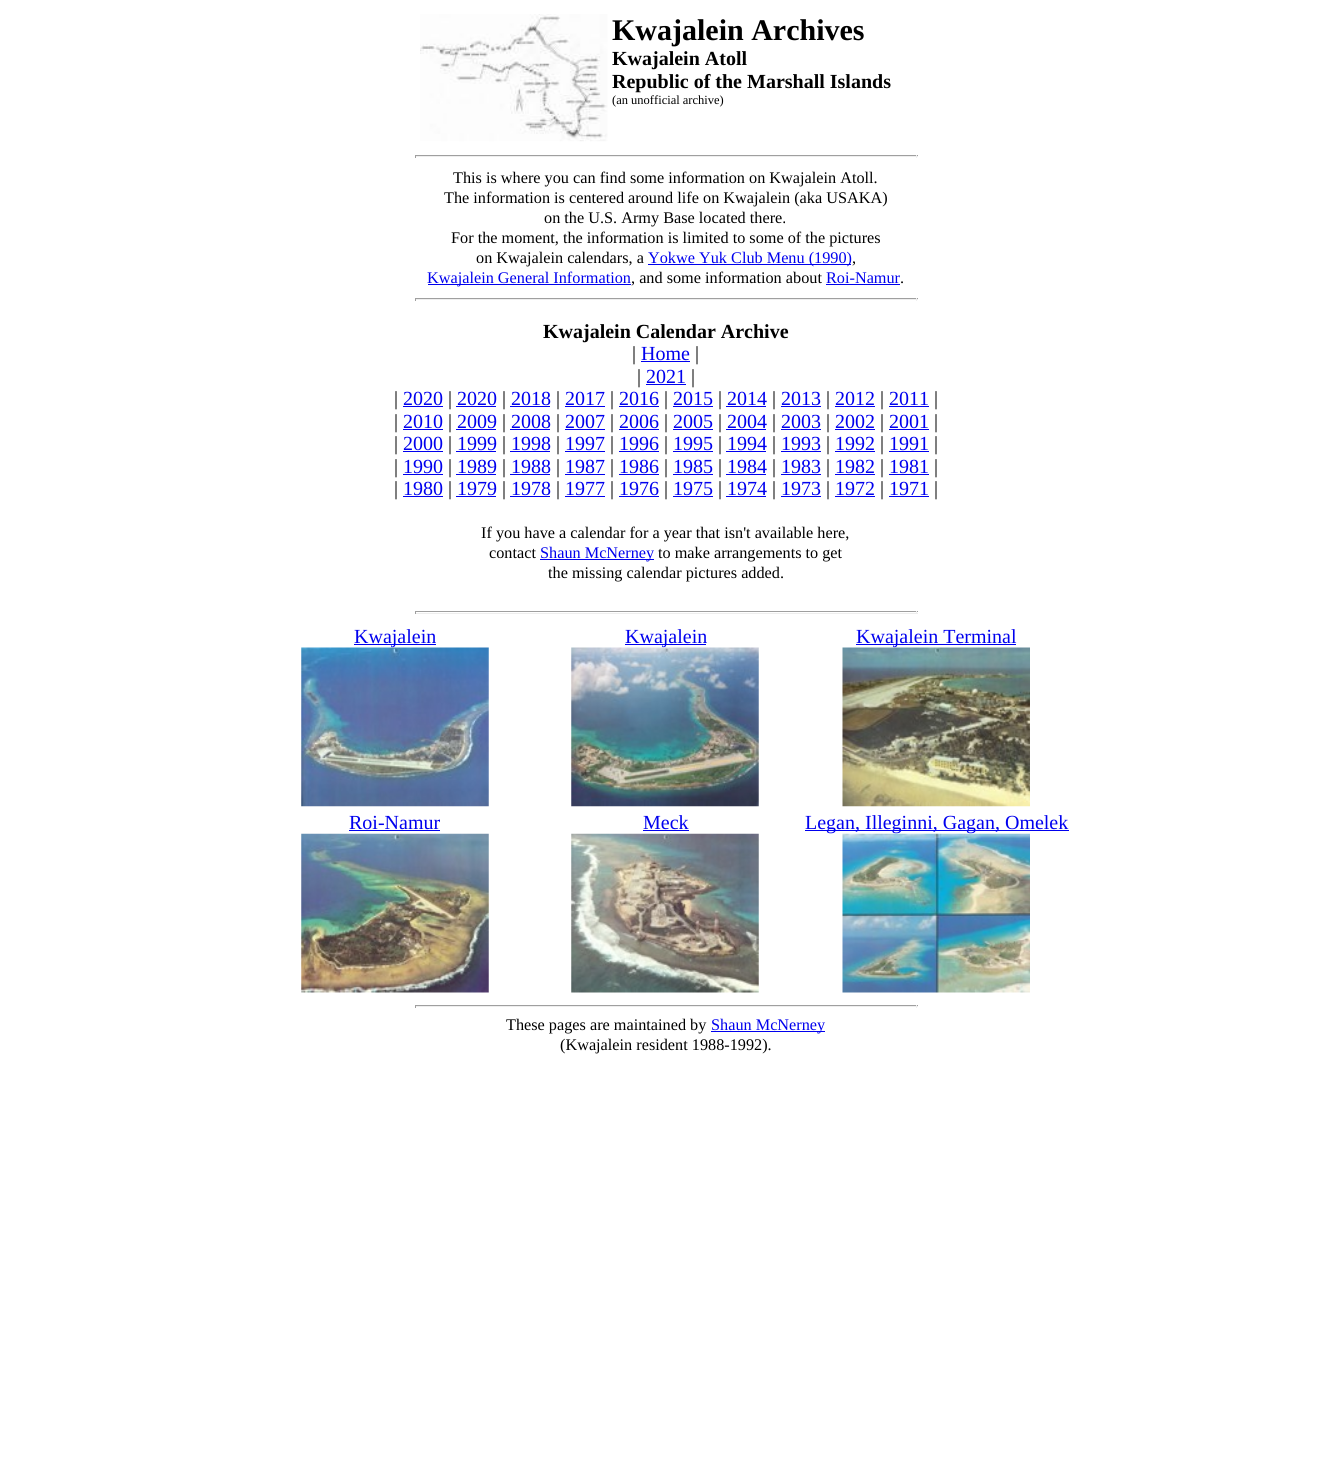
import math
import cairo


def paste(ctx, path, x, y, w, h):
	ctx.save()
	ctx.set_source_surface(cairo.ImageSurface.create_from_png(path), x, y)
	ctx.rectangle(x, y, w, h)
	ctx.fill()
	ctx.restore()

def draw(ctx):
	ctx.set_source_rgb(1, 1, 1)
	ctx.paint()
	paste(ctx, 'media/1.png', 420, 14, 188, 128)
	ctx.select_font_face('Liberation Serif', cairo.FONT_SLANT_NORMAL, cairo.FONT_WEIGHT_BOLD)
	ctx.set_font_size(30)
	ctx.set_source_rgb(0, 0, 0)
	ctx.move_to(612, 40)
	ctx.show_text('Kwajalein Archives')
	ctx.set_font_size(20)
	ctx.move_to(612, 65)
	ctx.show_text('Kwajalein Atoll')
	ctx.move_to(612, 88)
	ctx.show_text('Republic of the Marshall Islands')
	ctx.select_font_face('Liberation Serif')
	ctx.set_font_size(12.5)
	ctx.move_to(612, 104)
	ctx.show_text('(an unofficial archive)')
	ctx.set_source_rgb(0.624, 0.624, 0.624)
	ctx.rectangle(415, 155, 503, 1)
	ctx.fill()
	ctx.set_source_rgb(0.933, 0.933, 0.933)
	ctx.rectangle(916, 155, 1, 3)
	ctx.rectangle(415, 156, 503, 1)
	ctx.fill()
	ctx.set_source_rgb(0.624, 0.624, 0.624)
	ctx.rectangle(415, 155, 1, 3)
	ctx.fill()
	ctx.set_font_size(16.25)
	ctx.set_source_rgb(0, 0, 0)
	for x, y, s in [
		(453, 183, 'This is where you can find some information on Kwajalein Atoll.'),
		(444, 203, 'The information is centered around life on Kwajalein (aka USAKA)'),
		(544, 223, 'on the U.S. Army Base located there.'),
		(451, 243, 'For the moment, the information is limited to some of the pictures'),
		(476, 263, 'on Kwajalein calendars, a'),
	]:
		ctx.move_to(x, y)
		ctx.show_text(s)
	ctx.set_source_rgb(0, 0, 0.933)
	ctx.rectangle(648, 264, 203, 1)
	ctx.fill()
	ctx.move_to(648, 263)
	ctx.show_text('Yokwe Yuk Club Menu (1990)')
	ctx.set_source_rgb(0, 0, 0)
	ctx.move_to(852, 263)
	ctx.show_text(',')
	ctx.set_source_rgb(0, 0, 0.933)
	ctx.rectangle(428, 284, 203, 1)
	ctx.fill()
	ctx.move_to(427, 283)
	ctx.show_text('Kwajalein General Information')
	ctx.set_source_rgb(0, 0, 0)
	ctx.move_to(631, 283)
	ctx.show_text(', and some information about')
	ctx.set_source_rgb(0, 0, 0.933)
	ctx.move_to(826, 283)
	ctx.show_text('Roi-Namur')
	ctx.set_source_rgb(0, 0, 0)
	ctx.move_to(900, 283)
	ctx.show_text('.')
	ctx.set_source_rgb(0, 0, 0.933)
	ctx.rectangle(826, 284, 74, 1)
	ctx.fill()
	ctx.set_source_rgb(0.624, 0.624, 0.624)
	ctx.rectangle(415, 298, 503, 1)
	ctx.fill()
	ctx.set_source_rgb(0.933, 0.933, 0.933)
	ctx.rectangle(916, 298, 1, 3)
	ctx.rectangle(415, 299, 503, 1)
	ctx.fill()
	ctx.set_source_rgb(0.624, 0.624, 0.624)
	ctx.rectangle(415, 298, 1, 3)
	ctx.fill()
	ctx.select_font_face('Liberation Serif', cairo.FONT_SLANT_NORMAL, cairo.FONT_WEIGHT_BOLD)
	ctx.set_font_size(20)
	ctx.set_source_rgb(0, 0, 0)
	ctx.move_to(543, 338)
	ctx.show_text('Kwajalein Calendar Archive')
	ctx.select_font_face('Liberation Serif')
	ctx.move_to(632, 360)
	ctx.show_text('|')
	ctx.set_source_rgb(0, 0, 0.933)
	ctx.move_to(641, 360)
	ctx.show_text('Home')
	ctx.rectangle(641, 361, 49, 1)
	ctx.fill()
	ctx.set_source_rgb(0, 0, 0)
	ctx.move_to(695, 360)
	ctx.show_text('|')
	ctx.move_to(637, 383)
	ctx.show_text('|')
	ctx.set_source_rgb(0, 0, 0.933)
	ctx.move_to(646, 383)
	ctx.show_text('2021')
	ctx.rectangle(646, 384, 40, 1)
	ctx.fill()
	ctx.set_source_rgb(0, 0, 0)
	ctx.move_to(691, 383)
	ctx.show_text('|')
	ctx.move_to(394, 405)
	ctx.show_text('|')
	ctx.set_source_rgb(0, 0, 0.933)
	ctx.move_to(403, 405)
	ctx.show_text('2020')
	ctx.rectangle(403, 406, 40, 1)
	ctx.fill()
	ctx.set_source_rgb(0, 0, 0)
	ctx.move_to(448, 405)
	ctx.show_text('|')
	ctx.set_source_rgb(0, 0, 0.933)
	ctx.move_to(457, 405)
	ctx.show_text('2020')
	ctx.rectangle(456, 406, 40, 1)
	ctx.fill()
	ctx.set_source_rgb(0, 0, 0)
	ctx.move_to(502, 405)
	ctx.show_text('|')
	ctx.set_source_rgb(0, 0, 0.933)
	ctx.move_to(511, 405)
	ctx.show_text('2018')
	ctx.rectangle(510, 406, 40, 1)
	ctx.fill()
	ctx.set_source_rgb(0, 0, 0)
	ctx.move_to(556, 405)
	ctx.show_text('|')
	ctx.set_source_rgb(0, 0, 0.933)
	ctx.move_to(565, 405)
	ctx.show_text('2017')
	ctx.rectangle(565, 406, 40, 1)
	ctx.fill()
	ctx.set_source_rgb(0, 0, 0)
	ctx.move_to(610, 405)
	ctx.show_text('|')
	ctx.set_source_rgb(0, 0, 0.933)
	ctx.move_to(619, 405)
	ctx.show_text('2016')
	ctx.rectangle(619, 406, 40, 1)
	ctx.fill()
	ctx.set_source_rgb(0, 0, 0)
	ctx.move_to(664, 405)
	ctx.show_text('|')
	ctx.set_source_rgb(0, 0, 0.933)
	ctx.move_to(673, 405)
	ctx.show_text('2015')
	ctx.rectangle(673, 406, 40, 1)
	ctx.fill()
	ctx.set_source_rgb(0, 0, 0)
	ctx.move_to(718, 405)
	ctx.show_text('|')
	ctx.set_source_rgb(0, 0, 0.933)
	ctx.move_to(727, 405)
	ctx.show_text('2014')
	ctx.rectangle(726, 406, 40, 1)
	ctx.fill()
	ctx.set_source_rgb(0, 0, 0)
	ctx.move_to(772, 405)
	ctx.show_text('|')
	ctx.set_source_rgb(0, 0, 0.933)
	ctx.move_to(781, 405)
	ctx.show_text('2013')
	ctx.rectangle(781, 406, 40, 1)
	ctx.fill()
	ctx.set_source_rgb(0, 0, 0)
	ctx.move_to(826, 405)
	ctx.show_text('|')
	ctx.set_source_rgb(0, 0, 0.933)
	ctx.move_to(835, 405)
	ctx.show_text('2012')
	ctx.rectangle(835, 406, 40, 1)
	ctx.fill()
	ctx.set_source_rgb(0, 0, 0)
	ctx.move_to(880, 405)
	ctx.show_text('|')
	ctx.set_source_rgb(0, 0, 0.933)
	ctx.move_to(889, 405)
	ctx.show_text('2011')
	ctx.rectangle(889, 406, 40, 1)
	ctx.fill()
	ctx.set_source_rgb(0, 0, 0)
	ctx.move_to(934, 405)
	ctx.show_text('|')
	ctx.move_to(394, 428)
	ctx.show_text('|')
	ctx.set_source_rgb(0, 0, 0.933)
	ctx.move_to(403, 428)
	ctx.show_text('2010')
	ctx.rectangle(403, 429, 40, 1)
	ctx.fill()
	ctx.set_source_rgb(0, 0, 0)
	ctx.move_to(448, 428)
	ctx.show_text('|')
	ctx.set_source_rgb(0, 0, 0.933)
	ctx.move_to(457, 428)
	ctx.show_text('2009')
	ctx.rectangle(456, 429, 40, 1)
	ctx.fill()
	ctx.set_source_rgb(0, 0, 0)
	ctx.move_to(502, 428)
	ctx.show_text('|')
	ctx.set_source_rgb(0, 0, 0.933)
	ctx.move_to(511, 428)
	ctx.show_text('2008')
	ctx.rectangle(510, 429, 40, 1)
	ctx.fill()
	ctx.set_source_rgb(0, 0, 0)
	ctx.move_to(556, 428)
	ctx.show_text('|')
	ctx.set_source_rgb(0, 0, 0.933)
	ctx.move_to(565, 428)
	ctx.show_text('2007')
	ctx.rectangle(565, 429, 40, 1)
	ctx.fill()
	ctx.set_source_rgb(0, 0, 0)
	ctx.move_to(610, 428)
	ctx.show_text('|')
	ctx.set_source_rgb(0, 0, 0.933)
	ctx.move_to(619, 428)
	ctx.show_text('2006')
	ctx.rectangle(619, 429, 40, 1)
	ctx.fill()
	ctx.set_source_rgb(0, 0, 0)
	ctx.move_to(664, 428)
	ctx.show_text('|')
	ctx.set_source_rgb(0, 0, 0.933)
	ctx.move_to(673, 428)
	ctx.show_text('2005')
	ctx.rectangle(673, 429, 40, 1)
	ctx.fill()
	ctx.set_source_rgb(0, 0, 0)
	ctx.move_to(718, 428)
	ctx.show_text('|')
	ctx.set_source_rgb(0, 0, 0.933)
	ctx.move_to(727, 428)
	ctx.show_text('2004')
	ctx.rectangle(726, 429, 40, 1)
	ctx.fill()
	ctx.set_source_rgb(0, 0, 0)
	ctx.move_to(772, 428)
	ctx.show_text('|')
	ctx.set_source_rgb(0, 0, 0.933)
	ctx.move_to(781, 428)
	ctx.show_text('2003')
	ctx.rectangle(781, 429, 40, 1)
	ctx.fill()
	ctx.set_source_rgb(0, 0, 0)
	ctx.move_to(826, 428)
	ctx.show_text('|')
	ctx.set_source_rgb(0, 0, 0.933)
	ctx.move_to(835, 428)
	ctx.show_text('2002')
	ctx.rectangle(835, 429, 40, 1)
	ctx.fill()
	ctx.set_source_rgb(0, 0, 0)
	ctx.move_to(880, 428)
	ctx.show_text('|')
	ctx.set_source_rgb(0, 0, 0.933)
	ctx.move_to(889, 428)
	ctx.show_text('2001')
	ctx.rectangle(889, 429, 40, 1)
	ctx.fill()
	ctx.set_source_rgb(0, 0, 0)
	ctx.move_to(934, 428)
	ctx.show_text('|')
	ctx.move_to(394, 450)
	ctx.show_text('|')
	ctx.set_source_rgb(0, 0, 0.933)
	ctx.move_to(403, 450)
	ctx.show_text('2000')
	ctx.rectangle(403, 451, 40, 1)
	ctx.fill()
	ctx.set_source_rgb(0, 0, 0)
	ctx.move_to(448, 450)
	ctx.show_text('|')
	ctx.set_source_rgb(0, 0, 0.933)
	ctx.move_to(457, 450)
	ctx.show_text('1999')
	ctx.rectangle(456, 451, 40, 1)
	ctx.fill()
	ctx.set_source_rgb(0, 0, 0)
	ctx.move_to(502, 450)
	ctx.show_text('|')
	ctx.set_source_rgb(0, 0, 0.933)
	ctx.move_to(511, 450)
	ctx.show_text('1998')
	ctx.rectangle(510, 451, 40, 1)
	ctx.fill()
	ctx.set_source_rgb(0, 0, 0)
	ctx.move_to(556, 450)
	ctx.show_text('|')
	ctx.set_source_rgb(0, 0, 0.933)
	ctx.move_to(565, 450)
	ctx.show_text('1997')
	ctx.rectangle(565, 451, 40, 1)
	ctx.fill()
	ctx.set_source_rgb(0, 0, 0)
	ctx.move_to(610, 450)
	ctx.show_text('|')
	ctx.set_source_rgb(0, 0, 0.933)
	ctx.move_to(619, 450)
	ctx.show_text('1996')
	ctx.rectangle(619, 451, 40, 1)
	ctx.fill()
	ctx.set_source_rgb(0, 0, 0)
	ctx.move_to(664, 450)
	ctx.show_text('|')
	ctx.set_source_rgb(0, 0, 0.933)
	ctx.move_to(673, 450)
	ctx.show_text('1995')
	ctx.rectangle(673, 451, 40, 1)
	ctx.fill()
	ctx.set_source_rgb(0, 0, 0)
	ctx.move_to(718, 450)
	ctx.show_text('|')
	ctx.set_source_rgb(0, 0, 0.933)
	ctx.move_to(727, 450)
	ctx.show_text('1994')
	ctx.rectangle(726, 451, 40, 1)
	ctx.fill()
	ctx.set_source_rgb(0, 0, 0)
	ctx.move_to(772, 450)
	ctx.show_text('|')
	ctx.set_source_rgb(0, 0, 0.933)
	ctx.move_to(781, 450)
	ctx.show_text('1993')
	ctx.rectangle(781, 451, 40, 1)
	ctx.fill()
	ctx.set_source_rgb(0, 0, 0)
	ctx.move_to(826, 450)
	ctx.show_text('|')
	ctx.set_source_rgb(0, 0, 0.933)
	ctx.move_to(835, 450)
	ctx.show_text('1992')
	ctx.rectangle(835, 451, 40, 1)
	ctx.fill()
	ctx.set_source_rgb(0, 0, 0)
	ctx.move_to(880, 450)
	ctx.show_text('|')
	ctx.set_source_rgb(0, 0, 0.933)
	ctx.move_to(889, 450)
	ctx.show_text('1991')
	ctx.rectangle(889, 451, 40, 1)
	ctx.fill()
	ctx.set_source_rgb(0, 0, 0)
	ctx.move_to(934, 450)
	ctx.show_text('|')
	ctx.move_to(394, 473)
	ctx.show_text('|')
	ctx.set_source_rgb(0, 0, 0.933)
	ctx.move_to(403, 473)
	ctx.show_text('1990')
	ctx.rectangle(403, 474, 40, 1)
	ctx.fill()
	ctx.set_source_rgb(0, 0, 0)
	ctx.move_to(448, 473)
	ctx.show_text('|')
	ctx.set_source_rgb(0, 0, 0.933)
	ctx.move_to(457, 473)
	ctx.show_text('1989')
	ctx.rectangle(456, 474, 40, 1)
	ctx.fill()
	ctx.set_source_rgb(0, 0, 0)
	ctx.move_to(502, 473)
	ctx.show_text('|')
	ctx.set_source_rgb(0, 0, 0.933)
	ctx.move_to(511, 473)
	ctx.show_text('1988')
	ctx.rectangle(510, 474, 40, 1)
	ctx.fill()
	ctx.set_source_rgb(0, 0, 0)
	ctx.move_to(556, 473)
	ctx.show_text('|')
	ctx.set_source_rgb(0, 0, 0.933)
	ctx.move_to(565, 473)
	ctx.show_text('1987')
	ctx.rectangle(565, 474, 40, 1)
	ctx.fill()
	ctx.set_source_rgb(0, 0, 0)
	ctx.move_to(610, 473)
	ctx.show_text('|')
	ctx.set_source_rgb(0, 0, 0.933)
	ctx.move_to(619, 473)
	ctx.show_text('1986')
	ctx.rectangle(619, 474, 40, 1)
	ctx.fill()
	ctx.set_source_rgb(0, 0, 0)
	ctx.move_to(664, 473)
	ctx.show_text('|')
	ctx.set_source_rgb(0, 0, 0.933)
	ctx.move_to(673, 473)
	ctx.show_text('1985')
	ctx.rectangle(673, 474, 40, 1)
	ctx.fill()
	ctx.set_source_rgb(0, 0, 0)
	ctx.move_to(718, 473)
	ctx.show_text('|')
	ctx.set_source_rgb(0, 0, 0.933)
	ctx.move_to(727, 473)
	ctx.show_text('1984')
	ctx.rectangle(726, 474, 40, 1)
	ctx.fill()
	ctx.set_source_rgb(0, 0, 0)
	ctx.move_to(772, 473)
	ctx.show_text('|')
	ctx.set_source_rgb(0, 0, 0.933)
	ctx.move_to(781, 473)
	ctx.show_text('1983')
	ctx.rectangle(781, 474, 40, 1)
	ctx.fill()
	ctx.set_source_rgb(0, 0, 0)
	ctx.move_to(826, 473)
	ctx.show_text('|')
	ctx.set_source_rgb(0, 0, 0.933)
	ctx.move_to(835, 473)
	ctx.show_text('1982')
	ctx.rectangle(835, 474, 40, 1)
	ctx.fill()
	ctx.set_source_rgb(0, 0, 0)
	ctx.move_to(880, 473)
	ctx.show_text('|')
	ctx.set_source_rgb(0, 0, 0.933)
	ctx.move_to(889, 473)
	ctx.show_text('1981')
	ctx.rectangle(889, 474, 40, 1)
	ctx.fill()
	ctx.set_source_rgb(0, 0, 0)
	ctx.move_to(934, 473)
	ctx.show_text('|')
	ctx.move_to(394, 495)
	ctx.show_text('|')
	ctx.set_source_rgb(0, 0, 0.933)
	ctx.move_to(403, 495)
	ctx.show_text('1980')
	ctx.rectangle(403, 496, 40, 1)
	ctx.fill()
	ctx.set_source_rgb(0, 0, 0)
	ctx.move_to(448, 495)
	ctx.show_text('|')
	ctx.set_source_rgb(0, 0, 0.933)
	ctx.move_to(457, 495)
	ctx.show_text('1979')
	ctx.rectangle(456, 496, 40, 1)
	ctx.fill()
	ctx.set_source_rgb(0, 0, 0)
	ctx.move_to(502, 495)
	ctx.show_text('|')
	ctx.set_source_rgb(0, 0, 0.933)
	ctx.move_to(511, 495)
	ctx.show_text('1978')
	ctx.rectangle(510, 496, 40, 1)
	ctx.fill()
	ctx.set_source_rgb(0, 0, 0)
	ctx.move_to(556, 495)
	ctx.show_text('|')
	ctx.set_source_rgb(0, 0, 0.933)
	ctx.move_to(565, 495)
	ctx.show_text('1977')
	ctx.rectangle(565, 496, 40, 1)
	ctx.fill()
	ctx.set_source_rgb(0, 0, 0)
	ctx.move_to(610, 495)
	ctx.show_text('|')
	ctx.set_source_rgb(0, 0, 0.933)
	ctx.move_to(619, 495)
	ctx.show_text('1976')
	ctx.rectangle(619, 496, 40, 1)
	ctx.fill()
	ctx.set_source_rgb(0, 0, 0)
	ctx.move_to(664, 495)
	ctx.show_text('|')
	ctx.set_source_rgb(0, 0, 0.933)
	ctx.move_to(673, 495)
	ctx.show_text('1975')
	ctx.rectangle(673, 496, 40, 1)
	ctx.fill()
	ctx.set_source_rgb(0, 0, 0)
	ctx.move_to(718, 495)
	ctx.show_text('|')
	ctx.set_source_rgb(0, 0, 0.933)
	ctx.move_to(727, 495)
	ctx.show_text('1974')
	ctx.rectangle(726, 496, 40, 1)
	ctx.fill()
	ctx.set_source_rgb(0, 0, 0)
	ctx.move_to(772, 495)
	ctx.show_text('|')
	ctx.set_source_rgb(0, 0, 0.933)
	ctx.move_to(781, 495)
	ctx.show_text('1973')
	ctx.rectangle(781, 496, 40, 1)
	ctx.fill()
	ctx.set_source_rgb(0, 0, 0)
	ctx.move_to(826, 495)
	ctx.show_text('|')
	ctx.set_source_rgb(0, 0, 0.933)
	ctx.move_to(835, 495)
	ctx.show_text('1972')
	ctx.rectangle(835, 496, 40, 1)
	ctx.fill()
	ctx.set_source_rgb(0, 0, 0)
	ctx.move_to(880, 495)
	ctx.show_text('|')
	ctx.set_source_rgb(0, 0, 0.933)
	ctx.move_to(889, 495)
	ctx.show_text('1971')
	ctx.rectangle(889, 496, 40, 1)
	ctx.fill()
	ctx.set_source_rgb(0, 0, 0)
	ctx.move_to(934, 495)
	ctx.show_text('|')
	ctx.set_font_size(16.25)
	ctx.move_to(481, 538)
	ctx.show_text('If you have a calendar for a year that isn\'t available here,')
	ctx.move_to(489, 558)
	ctx.show_text('contact')
	ctx.set_source_rgb(0, 0, 0.933)
	ctx.rectangle(540, 559, 114, 1)
	ctx.fill()
	ctx.move_to(540, 558)
	ctx.show_text('Shaun McNerney')
	ctx.set_source_rgb(0, 0, 0)
	ctx.move_to(658, 558)
	ctx.show_text('to make arrangements to get')
	ctx.move_to(548, 578)
	ctx.show_text('the missing calendar pictures added.')
	ctx.set_source_rgb(0.624, 0.624, 0.624)
	ctx.rectangle(415, 611, 503, 1)
	ctx.fill()
	ctx.set_source_rgb(0.933, 0.933, 0.933)
	ctx.rectangle(916, 611, 1, 3)
	ctx.rectangle(415, 613, 503, 1)
	ctx.fill()
	ctx.set_source_rgb(0.624, 0.624, 0.624)
	ctx.rectangle(415, 611, 1, 3)
	ctx.fill()
	ctx.set_source_rgb(0, 0, 0.933)
	ctx.rectangle(354, 644, 82, 1)
	ctx.fill()
	ctx.set_font_size(20)
	ctx.move_to(354, 643)
	ctx.show_text('Kwajalein')
	paste(ctx, 'media/2.png', 301, 647, 188, 160)
	ctx.rectangle(625, 644, 81, 1)
	ctx.fill()
	ctx.move_to(625, 643)
	ctx.show_text('Kwajalein')
	paste(ctx, 'media/3.png', 571, 647, 188, 160)
	ctx.rectangle(856, 644, 160, 1)
	ctx.fill()
	ctx.move_to(856, 643)
	ctx.show_text('Kwajalein Terminal')
	paste(ctx, 'media/4.png', 842, 647, 188, 160)
	ctx.move_to(349, 829)
	ctx.show_text('Roi-Namur')
	ctx.rectangle(349, 830, 91, 1)
	ctx.fill()
	paste(ctx, 'media/5.png', 301, 833, 188, 160)
	ctx.move_to(643, 829)
	ctx.show_text('Meck')
	ctx.rectangle(643, 830, 46, 1)
	ctx.fill()
	paste(ctx, 'media/6.png', 571, 833, 188, 160)
	ctx.rectangle(805, 830, 264, 1)
	ctx.fill()
	ctx.move_to(805, 829)
	ctx.show_text('Legan, Illeginni, Gagan, Omelek')
	paste(ctx, 'media/7.png', 842, 833, 188, 160)
	ctx.set_source_rgb(0.624, 0.624, 0.624)
	ctx.rectangle(415, 1005, 503, 1)
	ctx.fill()
	ctx.set_source_rgb(0.933, 0.933, 0.933)
	ctx.rectangle(916, 1005, 1, 3)
	ctx.rectangle(415, 1006, 503, 1)
	ctx.fill()
	ctx.set_source_rgb(0.624, 0.624, 0.624)
	ctx.rectangle(415, 1005, 1, 3)
	ctx.fill()
	ctx.set_font_size(16.25)
	ctx.set_source_rgb(0, 0, 0)
	ctx.move_to(506, 1030)
	ctx.show_text('These pages are maintained by')
	ctx.set_source_rgb(0, 0, 0.933)
	ctx.rectangle(711, 1031, 114, 1)
	ctx.fill()
	ctx.move_to(711, 1030)
	ctx.show_text('Shaun McNerney')
	ctx.set_source_rgb(0, 0, 0)
	ctx.move_to(560, 1050)
	ctx.show_text('(Kwajalein resident 1988-1992).')


surface = cairo.ImageSurface(cairo.FORMAT_RGB24, 1331, 1479)
ctx = cairo.Context(surface)
options = cairo.FontOptions()
options.set_hint_metrics(cairo.HINT_METRICS_OFF)
options.set_hint_style(cairo.HINT_STYLE_NONE)
ctx.set_font_options(options)
ctx.set_miter_limit(4)
draw(ctx)
surface.write_to_png('image.png')
